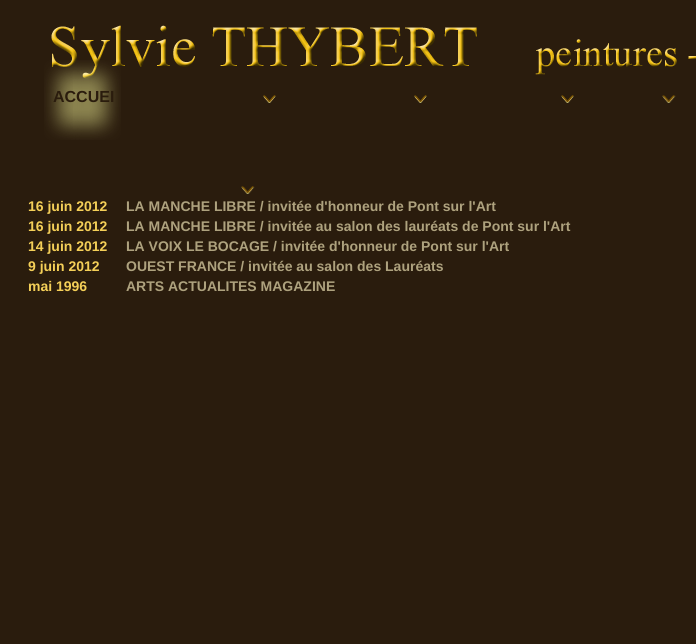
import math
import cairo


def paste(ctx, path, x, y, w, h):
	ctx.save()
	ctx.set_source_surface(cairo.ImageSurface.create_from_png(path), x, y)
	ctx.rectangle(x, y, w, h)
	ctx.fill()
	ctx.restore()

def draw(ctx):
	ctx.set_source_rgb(0.165, 0.11, 0.051)
	ctx.paint()
	paste(ctx, 'media/1.png', 51, 25, 645, 54)
	paste(ctx, 'media/2.png', 44, 60, 29, 80)
	paste(ctx, 'media/3.png', 73, 60, 48, 80)
	ctx.select_font_face('Liberation Sans', cairo.FONT_SLANT_NORMAL, cairo.FONT_WEIGHT_BOLD)
	ctx.set_font_size(16)
	ctx.set_source_rgb(0.165, 0.11, 0.051)
	ctx.move_to(53, 102)
	ctx.show_text('ACCUEI')
	paste(ctx, 'media/4.png', 263, 95, 13, 8)
	paste(ctx, 'media/5.png', 414, 95, 13, 8)
	paste(ctx, 'media/6.png', 561, 95, 13, 8)
	paste(ctx, 'media/7.png', 662, 95, 14, 8)
	paste(ctx, 'media/8.png', 241, 186, 14, 8)
	ctx.set_font_size(14)
	ctx.set_source_rgb(0.957, 0.812, 0.345)
	ctx.move_to(28, 211)
	ctx.show_text('16 juin 2012')
	ctx.set_source_rgb(0.682, 0.635, 0.494)
	ctx.move_to(126, 211)
	ctx.show_text('LA MANCHE LIBRE / invitée d\'honneur de Pont sur l\'Art')
	ctx.set_source_rgb(0.957, 0.812, 0.345)
	ctx.move_to(28, 231)
	ctx.show_text('16 juin 2012')
	ctx.set_source_rgb(0.682, 0.635, 0.494)
	ctx.move_to(126, 231)
	ctx.show_text('LA MANCHE LIBRE / invitée au salon des lauréats de Pont sur l\'Art')
	ctx.set_source_rgb(0.957, 0.812, 0.345)
	ctx.move_to(28, 251)
	ctx.show_text('14 juin 2012')
	ctx.set_source_rgb(0.682, 0.635, 0.494)
	ctx.move_to(126, 251)
	ctx.show_text('LA VOIX LE BOCAGE / invitée d\'honneur de Pont sur l\'Art')
	ctx.set_source_rgb(0.957, 0.812, 0.345)
	ctx.move_to(28, 271)
	ctx.show_text('9 juin 2012')
	ctx.set_source_rgb(0.682, 0.635, 0.494)
	ctx.move_to(126, 271)
	ctx.show_text('OUEST FRANCE / invitée au salon des Lauréats')
	ctx.set_source_rgb(0.957, 0.812, 0.345)
	ctx.move_to(28, 291)
	ctx.show_text('mai 1996')
	ctx.set_source_rgb(0.682, 0.635, 0.494)
	ctx.move_to(126, 291)
	ctx.show_text('ARTS ACTUALITES MAGAZINE')


surface = cairo.ImageSurface(cairo.FORMAT_RGB24, 696, 644)
ctx = cairo.Context(surface)
options = cairo.FontOptions()
options.set_hint_metrics(cairo.HINT_METRICS_OFF)
options.set_hint_style(cairo.HINT_STYLE_NONE)
ctx.set_font_options(options)
ctx.set_miter_limit(4)
draw(ctx)
surface.write_to_png('image.png')
